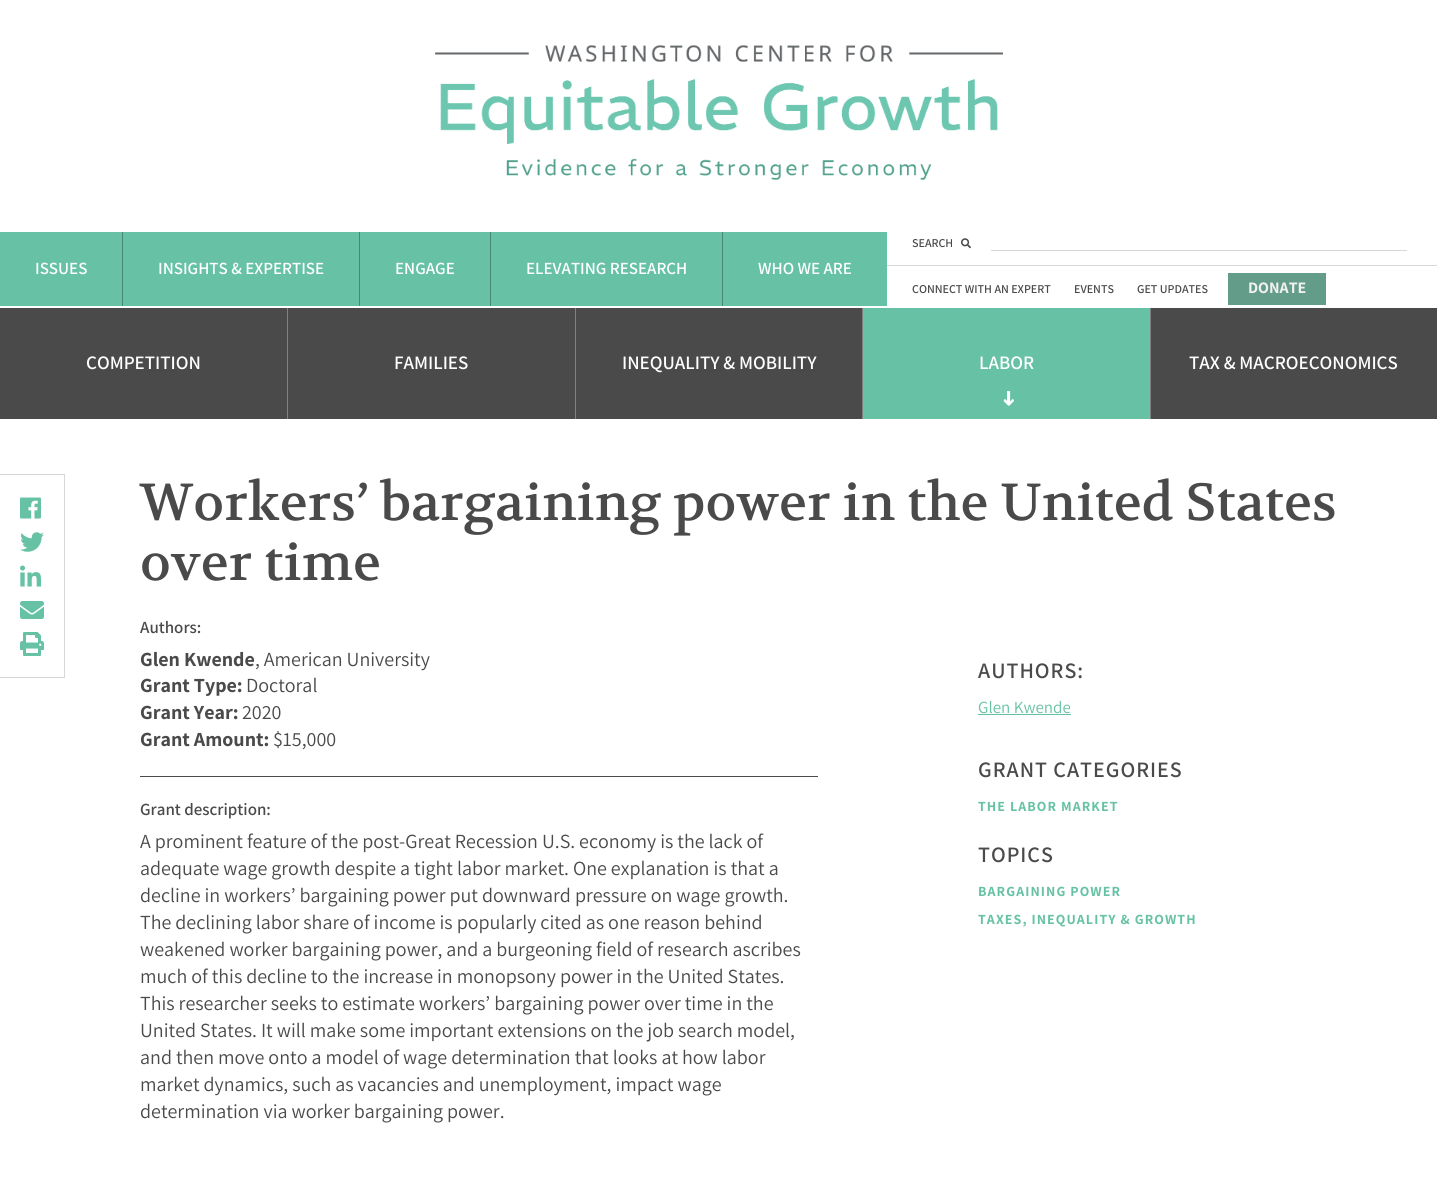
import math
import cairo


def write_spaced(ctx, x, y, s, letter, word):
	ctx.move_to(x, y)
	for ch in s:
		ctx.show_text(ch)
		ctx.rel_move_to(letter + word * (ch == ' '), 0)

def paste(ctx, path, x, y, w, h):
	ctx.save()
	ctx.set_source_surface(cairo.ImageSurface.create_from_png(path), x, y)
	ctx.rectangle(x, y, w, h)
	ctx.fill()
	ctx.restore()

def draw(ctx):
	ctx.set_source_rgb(1, 1, 1)
	ctx.paint()
	paste(ctx, 'media/1.png', 435, 45, 568, 136)
	ctx.set_source_rgb(0.404, 0.761, 0.647)
	ctx.rectangle(0, 232, 122, 74)
	ctx.fill()
	ctx.select_font_face('Assistant SemiBold')
	ctx.set_font_size(17)
	ctx.set_source_rgb(1, 1, 1)
	ctx.move_to(35, 274)
	ctx.show_text('ISSUES')
	ctx.set_source_rgb(0.404, 0.761, 0.647)
	ctx.rectangle(123, 232, 236, 74)
	ctx.fill()
	ctx.set_source_rgb(0.282, 0.533, 0.451)
	ctx.rectangle(122, 232, 1, 74)
	ctx.fill()
	ctx.set_source_rgb(1, 1, 1)
	ctx.move_to(158, 274)
	ctx.show_text('INSIGHTS & EXPERTISE')
	ctx.set_source_rgb(0.404, 0.761, 0.647)
	ctx.rectangle(360, 232, 130, 74)
	ctx.fill()
	ctx.set_source_rgb(0.282, 0.533, 0.451)
	ctx.rectangle(359, 232, 1, 74)
	ctx.fill()
	ctx.set_source_rgb(1, 1, 1)
	ctx.move_to(395, 274)
	ctx.show_text('ENGAGE')
	ctx.set_source_rgb(0.404, 0.761, 0.647)
	ctx.rectangle(491, 232, 231, 74)
	ctx.fill()
	ctx.set_source_rgb(0.282, 0.533, 0.451)
	ctx.rectangle(490, 232, 1, 74)
	ctx.fill()
	ctx.set_source_rgb(1, 1, 1)
	ctx.move_to(526, 274)
	ctx.show_text('ELEVATING RESEARCH')
	ctx.set_source_rgb(0.404, 0.761, 0.647)
	ctx.rectangle(723, 232, 164, 74)
	ctx.fill()
	ctx.set_source_rgb(0.282, 0.533, 0.451)
	ctx.rectangle(722, 232, 1, 74)
	ctx.fill()
	ctx.set_source_rgb(1, 1, 1)
	ctx.move_to(758, 274)
	ctx.show_text('WHO WE ARE')
	ctx.set_font_size(12)
	ctx.set_source_rgb(0.29, 0.29, 0.29)
	ctx.move_to(912, 247)
	ctx.show_text('SEARCH')
	paste(ctx, 'media/2.png', 961, 238, 10, 11)
	ctx.set_source_rgb(0.847, 0.847, 0.847)
	ctx.rectangle(991, 250, 416, 1)
	ctx.fill()
	ctx.rectangle(887, 265, 550, 1)
	ctx.fill()
	ctx.set_source_rgb(0.29, 0.29, 0.29)
	for x, y, s in [
		(912, 293, 'CONNECT WITH AN EXPERT'),
		(1074, 293, 'EVENTS'),
		(1137, 293, 'GET UPDATES'),
	]:
		ctx.move_to(x, y)
		ctx.show_text(s)
	ctx.set_source_rgb(0.392, 0.612, 0.541)
	ctx.rectangle(1228, 273, 98, 32)
	ctx.fill()
	ctx.select_font_face('Assistant', cairo.FONT_SLANT_NORMAL, cairo.FONT_WEIGHT_BOLD)
	ctx.set_font_size(16)
	ctx.set_source_rgb(0.945, 0.945, 0.945)
	ctx.move_to(1248, 293)
	ctx.show_text('DONATE')
	ctx.set_source_rgb(0.29, 0.29, 0.29)
	ctx.rectangle(0, 308, 1437, 111)
	ctx.fill()
	ctx.select_font_face('Assistant SemiBold')
	ctx.set_font_size(19)
	ctx.set_source_rgb(1, 1, 1)
	ctx.move_to(86, 369)
	ctx.show_text('COMPETITION')
	ctx.set_source_rgb(0.502, 0.502, 0.502)
	ctx.rectangle(287, 308, 1, 111)
	ctx.fill()
	ctx.set_source_rgb(1, 1, 1)
	ctx.move_to(394, 369)
	ctx.show_text('FAMILIES')
	ctx.set_source_rgb(0.502, 0.502, 0.502)
	ctx.rectangle(575, 308, 1, 111)
	ctx.fill()
	ctx.set_source_rgb(1, 1, 1)
	ctx.move_to(622, 369)
	ctx.show_text('INEQUALITY & MOBILITY')
	ctx.set_source_rgb(0.502, 0.502, 0.502)
	ctx.rectangle(862, 308, 1, 111)
	ctx.fill()
	ctx.set_source_rgb(0.404, 0.761, 0.647)
	ctx.rectangle(863, 308, 287, 111)
	ctx.fill()
	ctx.set_source_rgb(1, 1, 1)
	ctx.move_to(979, 369)
	ctx.show_text('LABOR')
	paste(ctx, 'media/3.png', 1003, 391, 11, 15)
	ctx.set_source_rgb(0.502, 0.502, 0.502)
	ctx.rectangle(1150, 308, 1, 111)
	ctx.fill()
	ctx.set_source_rgb(1, 1, 1)
	ctx.move_to(1189, 369)
	ctx.show_text('TAX & MACROECONOMICS')
	ctx.set_source_rgb(0.847, 0.847, 0.847)
	ctx.rectangle(0, 474, 65, 1)
	ctx.rectangle(64, 474, 1, 204)
	ctx.rectangle(0, 677, 65, 1)
	ctx.fill()
	paste(ctx, 'media/4.png', 20, 497, 21, 22)
	paste(ctx, 'media/5.png', 20, 532, 24, 20)
	paste(ctx, 'media/6.png', 20, 565, 21, 22)
	paste(ctx, 'media/7.png', 20, 601, 24, 18)
	paste(ctx, 'media/8.png', 20, 632, 24, 24)
	ctx.select_font_face('Volkhov')
	ctx.set_font_size(52)
	ctx.set_source_rgb(0.29, 0.29, 0.29)
	ctx.move_to(140, 520)
	ctx.show_text('Workers’ bargaining power in the United States')
	ctx.move_to(140, 580)
	ctx.show_text('over time')
	ctx.select_font_face('Assistant SemiBold')
	ctx.set_font_size(17)
	ctx.move_to(140, 633)
	ctx.show_text('Authors:')
	ctx.select_font_face('Assistant', cairo.FONT_SLANT_NORMAL, cairo.FONT_WEIGHT_BOLD)
	ctx.set_font_size(20)
	ctx.move_to(140, 666)
	ctx.show_text('Glen Kwende')
	ctx.select_font_face('Assistant')
	ctx.move_to(255, 666)
	ctx.show_text(', American University')
	ctx.select_font_face('Assistant', cairo.FONT_SLANT_NORMAL, cairo.FONT_WEIGHT_BOLD)
	ctx.move_to(140, 692)
	ctx.show_text('Grant Type:')
	ctx.select_font_face('Assistant')
	ctx.move_to(246, 692)
	ctx.show_text('Doctoral')
	ctx.select_font_face('Assistant', cairo.FONT_SLANT_NORMAL, cairo.FONT_WEIGHT_BOLD)
	ctx.move_to(140, 719)
	ctx.show_text('Grant Year:')
	ctx.select_font_face('Assistant')
	ctx.move_to(242, 719)
	ctx.show_text('2020')
	ctx.select_font_face('Assistant', cairo.FONT_SLANT_NORMAL, cairo.FONT_WEIGHT_BOLD)
	ctx.move_to(140, 746)
	ctx.show_text('Grant Amount:')
	ctx.select_font_face('Assistant')
	ctx.move_to(273, 746)
	ctx.show_text('$15,000')
	ctx.rectangle(140, 776, 678, 1)
	ctx.fill()
	ctx.select_font_face('Assistant SemiBold')
	ctx.set_font_size(17)
	ctx.move_to(140, 815)
	ctx.show_text('Grant description:')
	ctx.select_font_face('Assistant')
	ctx.set_font_size(20)
	for x, y, s in [
		(140, 848, 'A prominent feature of the post-Great Recession U.S. economy is the lack of'),
		(140, 875, 'adequate wage growth despite a tight labor market. One explanation is that a'),
		(140, 902, 'decline in workers’ bargaining power put downward pressure on wage growth.'),
		(140, 929, 'The declining labor share of income is popularly cited as one reason behind'),
		(140, 956, 'weakened worker bargaining power, and a burgeoning field of research ascribes'),
		(140, 983, 'much of this decline to the increase in monopsony power in the United States.'),
		(140, 1010, 'This researcher seeks to estimate workers’ bargaining power over time in the'),
		(140, 1037, 'United States. It will make some important extensions on the job search model,'),
		(140, 1064, 'and then move onto a model of wage determination that looks at how labor'),
		(140, 1091, 'market dynamics, such as vacancies and unemployment, impact wage'),
		(140, 1118, 'determination via worker bargaining power.'),
	]:
		ctx.move_to(x, y)
		ctx.show_text(s)
	ctx.select_font_face('Assistant SemiBold')
	ctx.set_font_size(22)
	write_spaced(ctx, 978, 678, 'AUTHORS:', 1, 0)
	ctx.select_font_face('Assistant')
	ctx.set_font_size(17)
	ctx.set_source_rgb(0.404, 0.761, 0.647)
	ctx.move_to(978, 713)
	ctx.show_text('Glen Kwende')
	ctx.rectangle(978, 714, 93, 1)
	ctx.fill()
	ctx.select_font_face('Assistant SemiBold')
	ctx.set_font_size(22)
	ctx.set_source_rgb(0.29, 0.29, 0.29)
	write_spaced(ctx, 978, 777, 'GRANT CATEGORIES', 1, 0)
	ctx.select_font_face('Assistant', cairo.FONT_SLANT_NORMAL, cairo.FONT_WEIGHT_BOLD)
	ctx.set_font_size(14)
	ctx.set_source_rgb(0.404, 0.761, 0.647)
	write_spaced(ctx, 978, 811, 'THE LABOR MARKET', 1.1, 0)
	ctx.select_font_face('Assistant SemiBold')
	ctx.set_font_size(22)
	ctx.set_source_rgb(0.29, 0.29, 0.29)
	write_spaced(ctx, 978, 862, 'TOPICS', 1, 0)
	ctx.select_font_face('Assistant', cairo.FONT_SLANT_NORMAL, cairo.FONT_WEIGHT_BOLD)
	ctx.set_font_size(14)
	ctx.set_source_rgb(0.404, 0.761, 0.647)
	write_spaced(ctx, 978, 896, 'BARGAINING POWER', 1.1, 0)
	write_spaced(ctx, 978, 924, 'TAXES, INEQUALITY & GROWTH', 1.1, 0)


surface = cairo.ImageSurface(cairo.FORMAT_RGB24, 1437, 1179)
ctx = cairo.Context(surface)
options = cairo.FontOptions()
options.set_hint_metrics(cairo.HINT_METRICS_OFF)
options.set_hint_style(cairo.HINT_STYLE_NONE)
ctx.set_font_options(options)
ctx.set_miter_limit(4)
draw(ctx)
surface.write_to_png('image.png')
